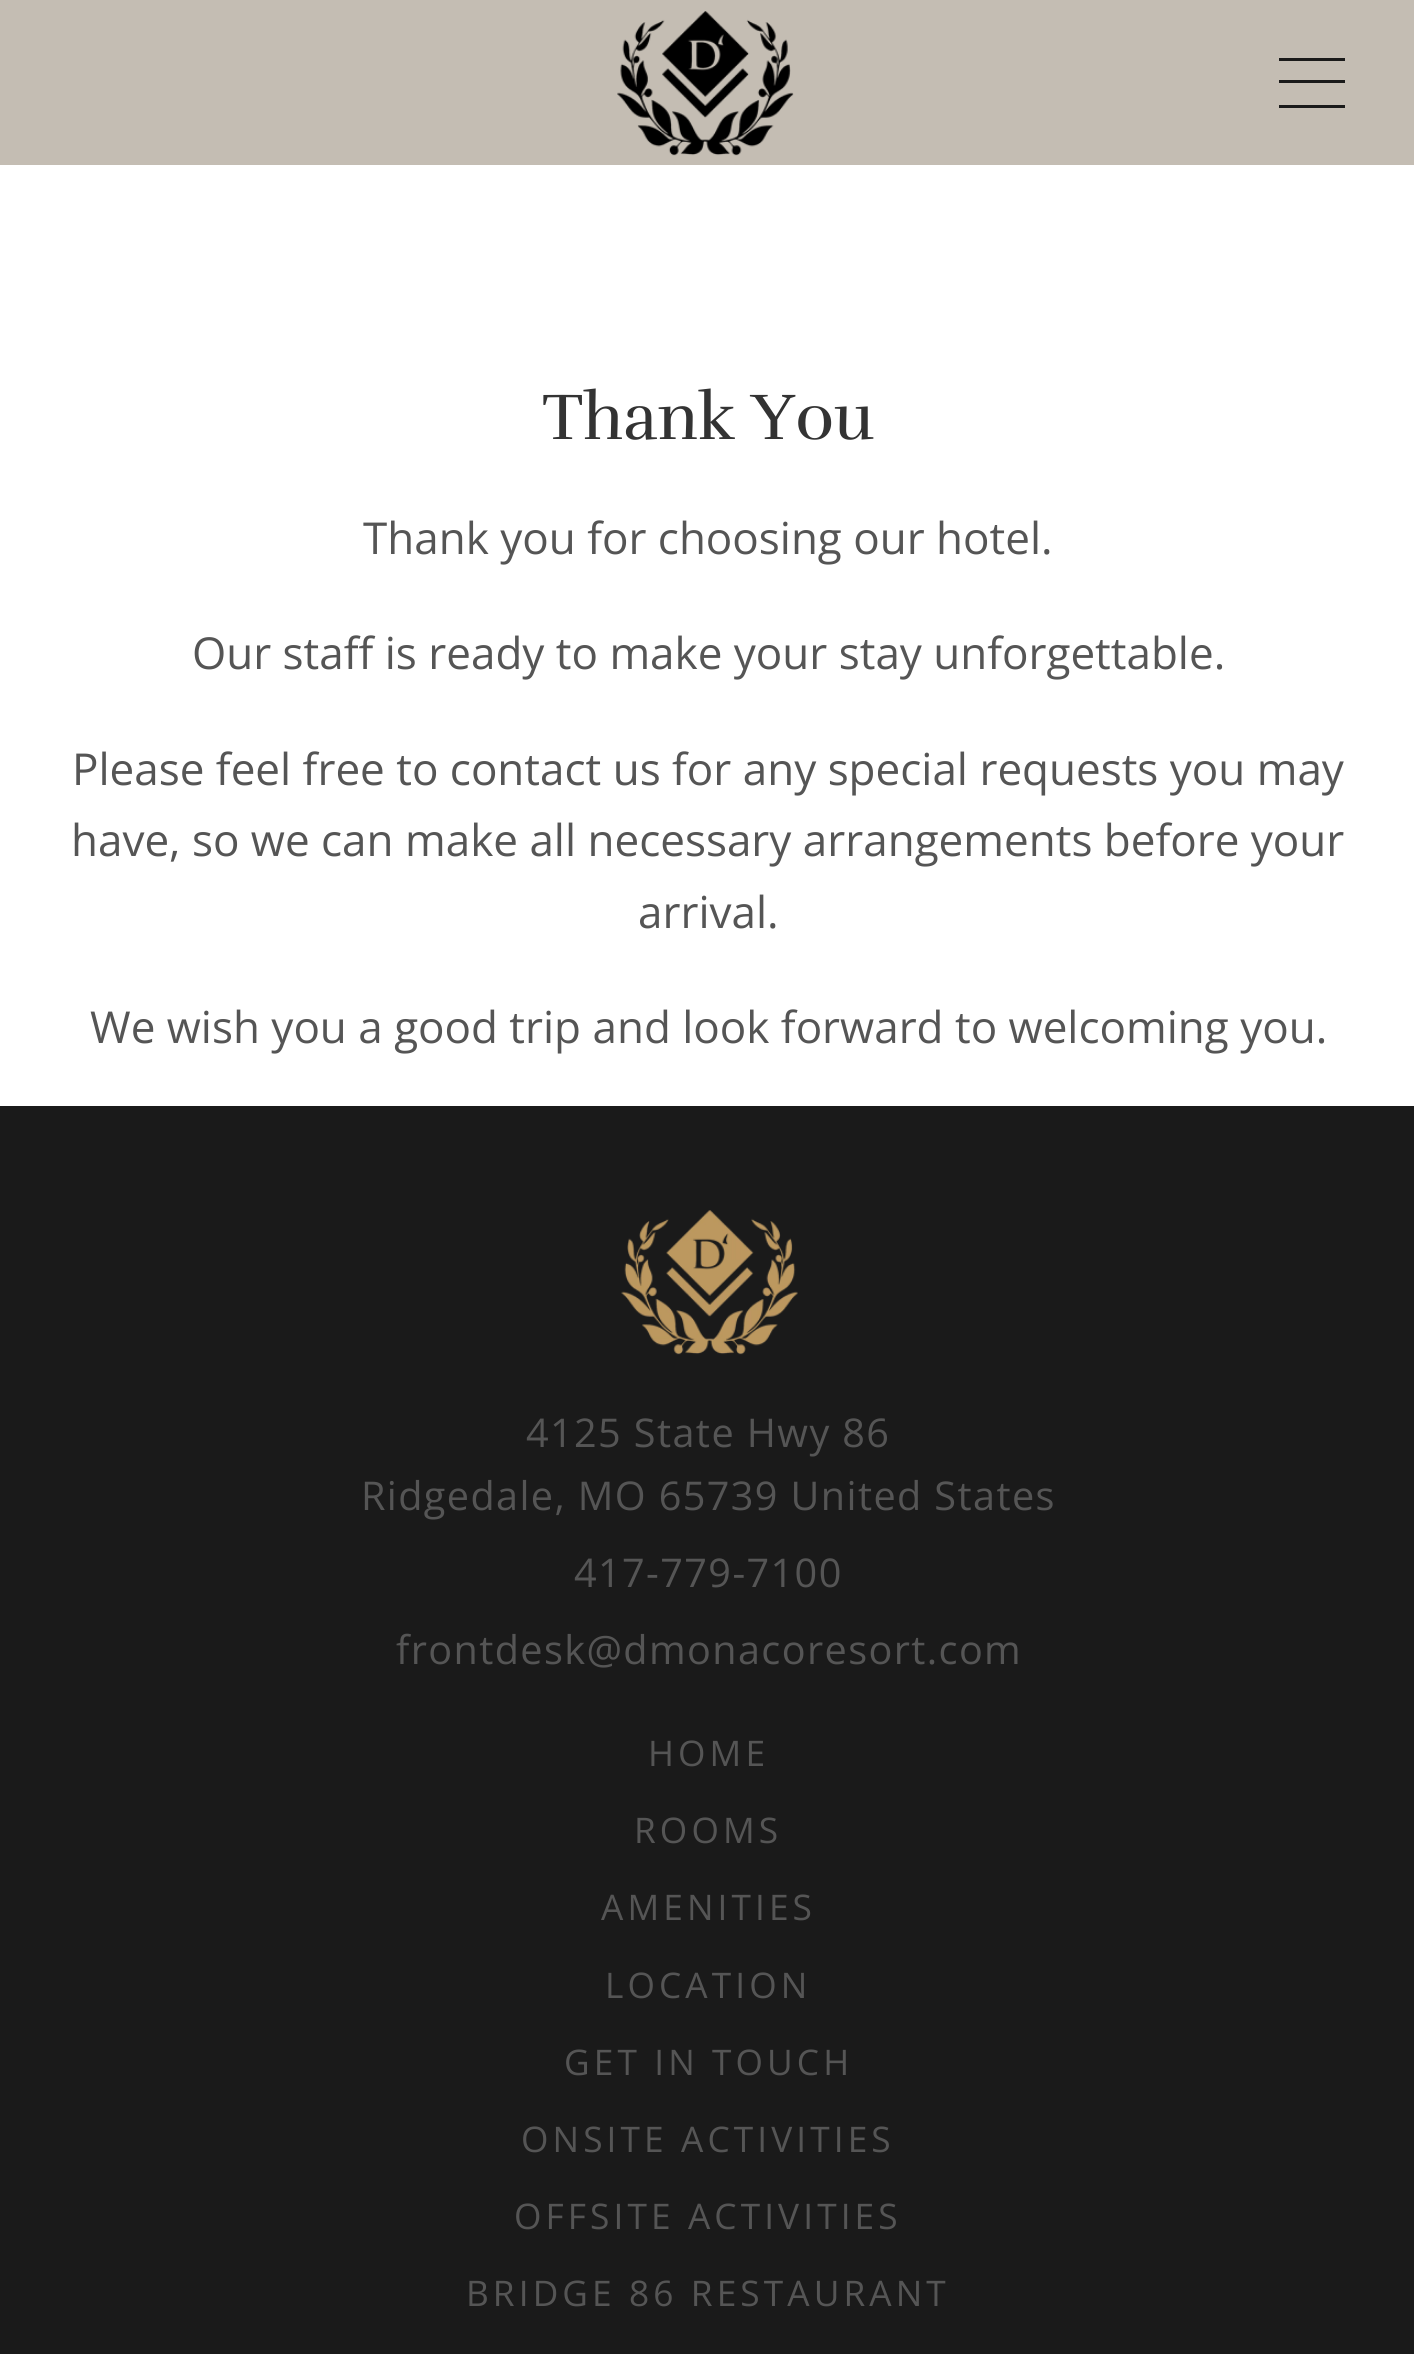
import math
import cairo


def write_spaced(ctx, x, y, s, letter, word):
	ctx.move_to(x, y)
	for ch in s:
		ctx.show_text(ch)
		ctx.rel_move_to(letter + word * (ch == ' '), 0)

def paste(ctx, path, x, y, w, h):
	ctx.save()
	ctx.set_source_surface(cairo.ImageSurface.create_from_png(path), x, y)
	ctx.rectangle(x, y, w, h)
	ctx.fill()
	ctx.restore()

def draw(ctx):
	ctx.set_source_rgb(1, 1, 1)
	ctx.paint()
	ctx.set_source_rgb(0.769, 0.741, 0.702)
	ctx.rectangle(0, 0, 1414, 165)
	ctx.fill()
	paste(ctx, 'media/1.png', 617, 11, 177, 145)
	ctx.set_source_rgb(0.102, 0.102, 0.102)
	ctx.rectangle(1279, 58, 66, 3)
	ctx.rectangle(1279, 80, 66, 3)
	ctx.rectangle(1279, 105, 66, 3)
	ctx.fill()
	ctx.select_font_face('Rufina')
	ctx.set_font_size(66)
	ctx.set_source_rgb(0.2, 0.2, 0.2)
	ctx.move_to(542, 439)
	ctx.show_text('Thank You')
	ctx.select_font_face('Open Sans')
	ctx.set_font_size(44)
	ctx.set_source_rgb(0.333, 0.333, 0.333)
	for x, y, s in [
		(363, 554, 'Thank you for choosing our hotel.'),
		(192, 669, 'Our staff is ready to make your stay unforgettable.'),
		(72, 785, 'Please feel free to contact us for any special requests you may'),
		(71, 856, 'have, so we can make all necessary arrangements before your'),
		(638, 928, 'arrival.'),
		(90, 1043, 'We wish you a good trip and look forward to welcoming you.'),
	]:
		ctx.move_to(x, y)
		ctx.show_text(s)
	ctx.set_source_rgb(0.102, 0.102, 0.102)
	ctx.rectangle(0, 1106, 1414, 1248)
	ctx.fill()
	paste(ctx, 'media/2.png', 621, 1210, 177, 145)
	ctx.set_font_size(39.6)
	ctx.set_source_rgb(0.333, 0.333, 0.333)
	for x, y, s in [
		(526, 1447, '4125 State Hwy 86'),
		(361, 1510, 'Ridgedale, MO 65739 United States'),
		(574, 1587, '417-779-7100'),
		(396, 1664, 'frontdesk@dmonacoresort.com'),
	]:
		write_spaced(ctx, x, y, s, 1.4, 0)
	ctx.set_font_size(35.25)
	for x, y, s in [
		(648, 1766, 'HOME'),
		(634, 1843, 'ROOMS'),
		(601, 1920, 'AMENITIES'),
		(605, 1998, 'LOCATION'),
		(564, 2075, 'GET IN TOUCH'),
		(521, 2152, 'ONSITE ACTIVITIES'),
		(514, 2229, 'OFFSITE ACTIVITIES'),
		(466, 2306, 'BRIDGE 86 RESTAURANT'),
	]:
		write_spaced(ctx, x, y, s, 4.1, 0)


surface = cairo.ImageSurface(cairo.FORMAT_RGB24, 1414, 2354)
ctx = cairo.Context(surface)
options = cairo.FontOptions()
options.set_hint_metrics(cairo.HINT_METRICS_OFF)
options.set_hint_style(cairo.HINT_STYLE_NONE)
ctx.set_font_options(options)
ctx.set_miter_limit(4)
draw(ctx)
surface.write_to_png('image.png')
